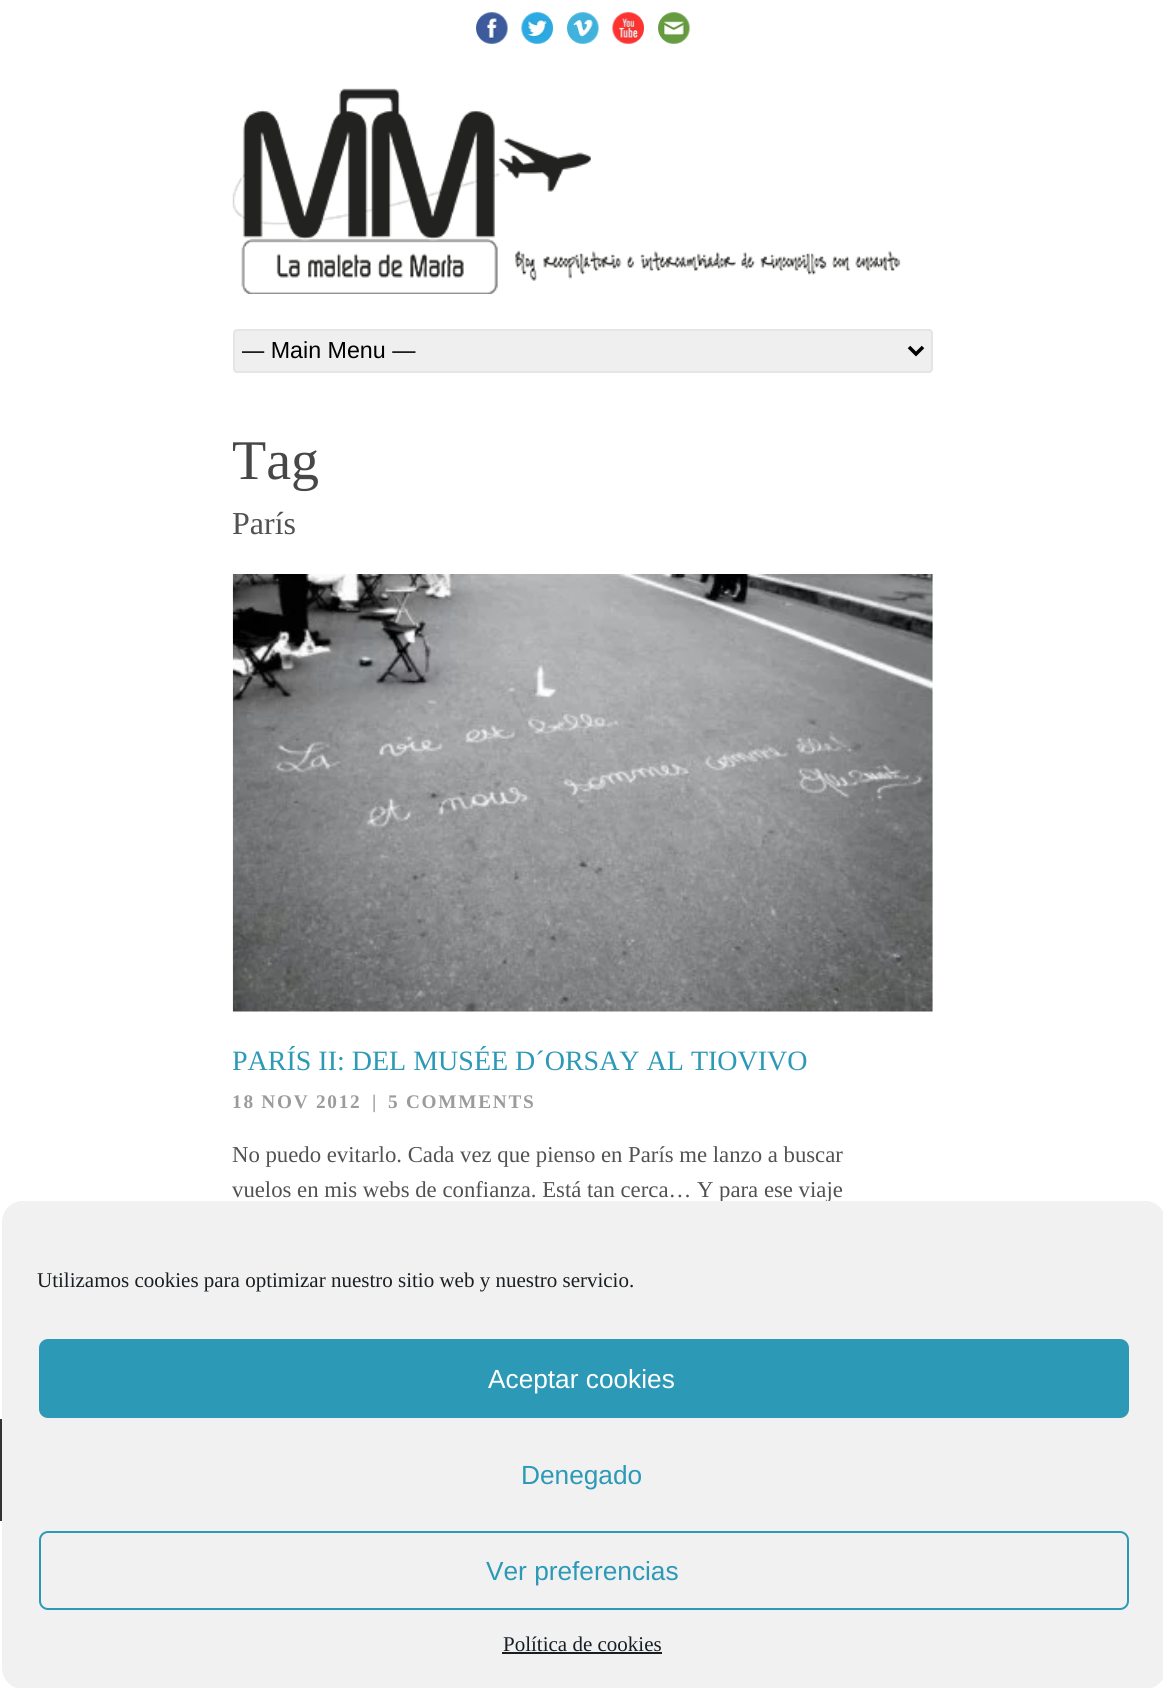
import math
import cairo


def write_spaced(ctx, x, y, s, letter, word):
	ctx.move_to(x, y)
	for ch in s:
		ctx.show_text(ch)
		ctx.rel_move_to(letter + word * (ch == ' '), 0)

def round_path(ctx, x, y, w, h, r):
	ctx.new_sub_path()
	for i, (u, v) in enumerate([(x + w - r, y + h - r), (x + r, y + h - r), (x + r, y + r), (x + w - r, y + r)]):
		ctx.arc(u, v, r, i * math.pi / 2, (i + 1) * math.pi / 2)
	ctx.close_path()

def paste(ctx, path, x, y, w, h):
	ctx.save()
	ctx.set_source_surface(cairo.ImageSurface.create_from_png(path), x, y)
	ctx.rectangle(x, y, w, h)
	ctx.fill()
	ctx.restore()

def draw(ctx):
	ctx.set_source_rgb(1, 1, 1)
	ctx.paint()
	paste(ctx, 'media/1.png', 476, 12, 32, 32)
	paste(ctx, 'media/2.png', 521, 12, 32, 32)
	paste(ctx, 'media/3.png', 567, 12, 32, 32)
	paste(ctx, 'media/4.png', 612, 12, 32, 32)
	paste(ctx, 'media/5.png', 658, 12, 32, 32)
	paste(ctx, 'media/6.png', 232, 88, 669, 206)
	ctx.set_source_rgb(0.937, 0.937, 0.937)
	round_path(ctx, 234, 330, 698, 42, 3)
	ctx.fill_preserve()
	ctx.set_source_rgb(0.898, 0.898, 0.898)
	ctx.stroke()
	ctx.new_path()
	ctx.move_to(909, 347)
	ctx.line_to(916, 354)
	ctx.line_to(923, 347)
	ctx.set_source_rgb(0, 0, 0)
	ctx.set_line_width(3.5)
	ctx.stroke()
	ctx.save()
	ctx.rectangle(242, 336, 661, 30)
	ctx.clip()
	ctx.select_font_face('Liberation Sans')
	ctx.set_font_size(23.25)
	ctx.move_to(241, 358)
	ctx.show_text('— Main Menu —')
	ctx.restore()
	ctx.select_font_face('Liberation Serif')
	ctx.set_font_size(56)
	ctx.set_source_rgb(0.278, 0.278, 0.278)
	ctx.move_to(232, 479)
	ctx.show_text('Tag')
	ctx.set_font_size(32)
	ctx.set_source_rgb(0.322, 0.322, 0.322)
	ctx.move_to(232, 534)
	ctx.show_text('París')
	paste(ctx, 'media/7.png', 232, 574, 701, 438)
	ctx.save()
	ctx.rectangle(233, 574, 700, 740)
	ctx.clip()
	ctx.set_font_size(28)
	ctx.set_source_rgb(0.173, 0.6, 0.718)
	ctx.move_to(232, 1070)
	ctx.show_text('PARÍS II: DEL MUSÉE D´ORSAY AL TIOVIVO')
	ctx.restore()
	ctx.select_font_face('Liberation Serif', cairo.FONT_SLANT_NORMAL, cairo.FONT_WEIGHT_BOLD)
	ctx.set_font_size(19.25)
	ctx.set_source_rgb(0.608, 0.608, 0.608)
	for x, y, s in [
		(232, 1108, '18 NOV 2012'),
		(372, 1108, '|'),
		(388, 1108, '5 COMMENTS'),
	]:
		write_spaced(ctx, x, y, s, 1.75, 0)
	ctx.select_font_face('Liberation Serif')
	ctx.set_font_size(22.75)
	ctx.set_source_rgb(0.322, 0.322, 0.322)
	ctx.move_to(232, 1162)
	ctx.show_text('No puedo evitarlo. Cada vez que pienso en París me lanzo a buscar')
	ctx.move_to(232, 1197)
	ctx.show_text('vuelos en mis webs de confianza. Está tan cerca… Y para ese viaje')
	ctx.set_source_rgb(0.196, 0.196, 0.196)
	ctx.rectangle(0, 1419, 2, 102)
	ctx.fill()
	ctx.set_source_rgb(0.945, 0.945, 0.945)
	round_path(ctx, 3, 1202, 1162, 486, 20)
	ctx.fill_preserve()
	ctx.set_line_width(2)
	ctx.stroke()
	ctx.set_font_size(21)
	ctx.set_source_rgb(0.098, 0.118, 0.137)
	ctx.move_to(37, 1287)
	ctx.show_text('Utilizamos cookies para optimizar nuestro sitio web y nuestro servicio.')
	ctx.set_source_rgb(0.173, 0.6, 0.718)
	round_path(ctx, 40, 1340, 1088, 77, 8)
	ctx.fill_preserve()
	ctx.stroke()
	ctx.select_font_face('Liberation Sans')
	ctx.set_font_size(26.25)
	ctx.set_source_rgb(1, 1, 1)
	ctx.move_to(488, 1388)
	ctx.show_text('Aceptar cookies')
	ctx.set_source_rgb(0.173, 0.6, 0.718)
	ctx.move_to(521, 1484)
	ctx.show_text('Denegado')
	round_path(ctx, 40, 1532, 1088, 77, 8)
	ctx.stroke()
	ctx.move_to(486, 1580)
	ctx.show_text('Ver preferencias')
	ctx.select_font_face('Liberation Serif')
	ctx.set_font_size(21)
	ctx.set_source_rgb(0.098, 0.118, 0.137)
	ctx.move_to(503, 1651)
	ctx.show_text('Política de cookies')
	ctx.rectangle(502, 1652, 160, 2)
	ctx.fill()


surface = cairo.ImageSurface(cairo.FORMAT_RGB24, 1163, 1688)
ctx = cairo.Context(surface)
options = cairo.FontOptions()
options.set_hint_metrics(cairo.HINT_METRICS_OFF)
options.set_hint_style(cairo.HINT_STYLE_NONE)
ctx.set_font_options(options)
ctx.set_miter_limit(4)
draw(ctx)
surface.write_to_png('image.png')
